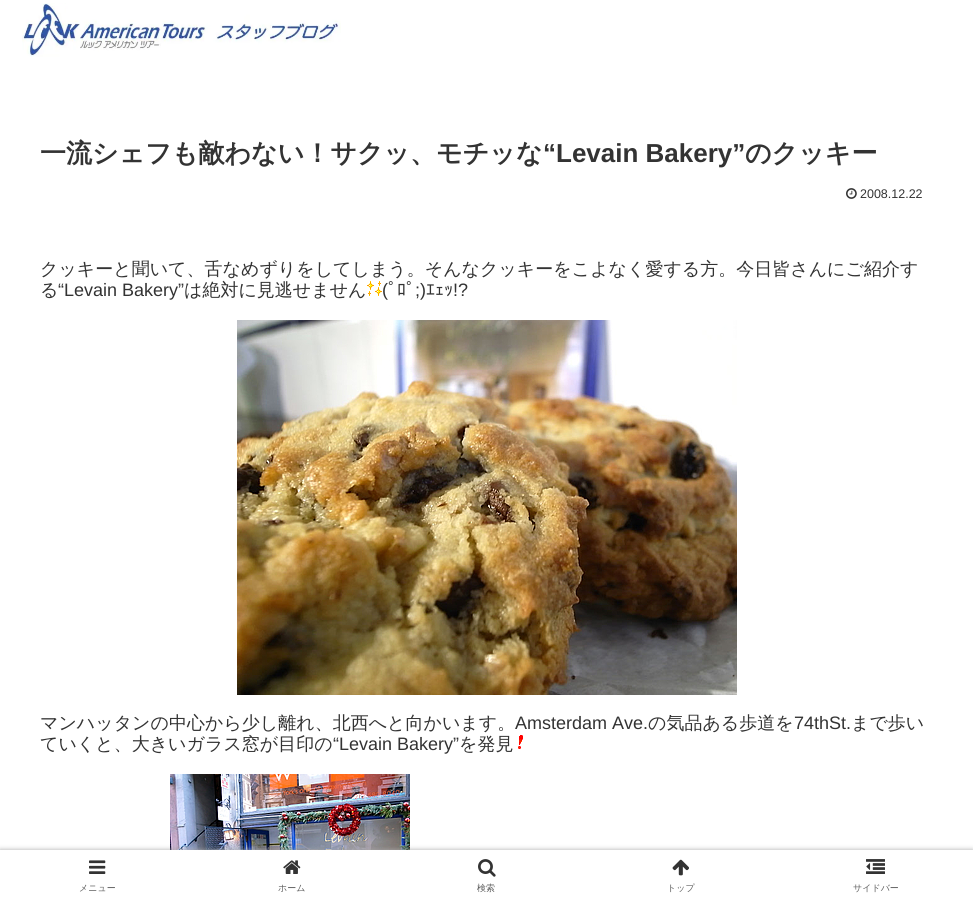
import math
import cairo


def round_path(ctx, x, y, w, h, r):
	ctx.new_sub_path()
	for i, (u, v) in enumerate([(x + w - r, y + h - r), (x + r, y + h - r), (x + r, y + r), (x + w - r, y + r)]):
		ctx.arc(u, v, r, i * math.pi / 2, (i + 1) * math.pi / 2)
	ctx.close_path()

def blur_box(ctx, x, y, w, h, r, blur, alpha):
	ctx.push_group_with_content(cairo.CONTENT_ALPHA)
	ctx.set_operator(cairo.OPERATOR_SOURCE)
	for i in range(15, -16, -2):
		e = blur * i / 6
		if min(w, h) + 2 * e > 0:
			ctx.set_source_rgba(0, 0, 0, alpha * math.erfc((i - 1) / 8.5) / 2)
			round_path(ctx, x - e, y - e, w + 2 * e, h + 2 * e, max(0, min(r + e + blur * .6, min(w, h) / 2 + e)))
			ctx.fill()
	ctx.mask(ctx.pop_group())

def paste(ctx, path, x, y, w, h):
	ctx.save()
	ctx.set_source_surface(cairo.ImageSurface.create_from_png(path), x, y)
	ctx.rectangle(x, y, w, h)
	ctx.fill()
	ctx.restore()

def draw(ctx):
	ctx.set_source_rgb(1, 1, 1)
	ctx.paint()
	paste(ctx, 'media/1.png', 22, 3, 319, 54)
	ctx.select_font_face('WenQuanYi Zen Hei', cairo.FONT_SLANT_NORMAL, cairo.FONT_WEIGHT_BOLD)
	ctx.set_font_size(26)
	ctx.set_source_rgb(0.2, 0.2, 0.2)
	ctx.move_to(40, 162)
	ctx.show_text('一流シェフも敵わない！サクッ、モチッな')
	ctx.select_font_face('Liberation Sans', cairo.FONT_SLANT_NORMAL, cairo.FONT_WEIGHT_BOLD)
	ctx.move_to(543, 162)
	ctx.show_text('“Levain Bakery”')
	ctx.select_font_face('WenQuanYi Zen Hei', cairo.FONT_SLANT_NORMAL, cairo.FONT_WEIGHT_BOLD)
	ctx.move_to(745, 162)
	ctx.show_text('のクッキー')
	paste(ctx, 'media/2.png', 846, 188, 11, 11)
	ctx.select_font_face('Liberation Sans')
	ctx.set_font_size(12.5)
	ctx.move_to(860, 198)
	ctx.show_text('2008.12.22')
	ctx.select_font_face('WenQuanYi Zen Hei Medium')
	ctx.set_font_size(18)
	ctx.move_to(40, 275)
	ctx.show_text('クッキーと聞いて、舌なめずりをしてしまう。そんなクッキーをこよなく愛する方。今日皆さんにご紹介す')
	ctx.move_to(40, 296)
	ctx.show_text('る')
	ctx.select_font_face('Liberation Sans')
	ctx.move_to(58, 296)
	ctx.show_text('“Levain Bakery”')
	ctx.select_font_face('WenQuanYi Zen Hei Medium')
	ctx.move_to(184, 296)
	ctx.show_text('は絶対に見逃せません')
	paste(ctx, 'media/3.png', 367, 281, 15, 15)
	ctx.select_font_face('Liberation Sans')
	ctx.move_to(382, 296)
	ctx.show_text('(')
	ctx.select_font_face('IPAPGothic')
	ctx.move_to(388, 296)
	ctx.show_text('ﾟﾛﾟ')
	ctx.select_font_face('Liberation Sans')
	ctx.move_to(415, 296)
	ctx.show_text(';)')
	ctx.select_font_face('IPAPGothic')
	ctx.move_to(426, 296)
	ctx.show_text('ｴｪｯ')
	ctx.select_font_face('Liberation Sans')
	ctx.move_to(453, 296)
	ctx.show_text('!?')
	paste(ctx, 'media/4.png', 237, 320, 500, 375)
	ctx.select_font_face('WenQuanYi Zen Hei Medium')
	ctx.move_to(40, 729)
	ctx.show_text('マンハッタンの中心から少し離れ、北西へと向かいます。')
	ctx.select_font_face('Liberation Sans')
	ctx.move_to(515, 729)
	ctx.show_text('Amsterdam Ave.')
	ctx.select_font_face('WenQuanYi Zen Hei Medium')
	ctx.move_to(648, 729)
	ctx.show_text('の気品ある歩道を')
	ctx.select_font_face('Liberation Sans')
	ctx.move_to(794, 729)
	ctx.show_text('74thSt.')
	ctx.select_font_face('WenQuanYi Zen Hei Medium')
	ctx.move_to(851, 729)
	ctx.show_text('まで歩い')
	ctx.move_to(40, 750)
	ctx.show_text('ていくと、大きいガラス窓が目印の')
	ctx.select_font_face('Liberation Sans')
	ctx.move_to(333, 750)
	ctx.show_text('“Levain Bakery”')
	ctx.select_font_face('WenQuanYi Zen Hei Medium')
	ctx.move_to(459, 750)
	ctx.show_text('を発見')
	paste(ctx, 'media/5.png', 518, 735, 5, 14)
	paste(ctx, 'media/6.png', 170, 774, 240, 76)
	ctx.set_source_rgb(0.663, 0.663, 0.663)
	blur_box(ctx, 0, 850, 973, 50, 0, 2.5, 1)
	ctx.set_source_rgb(1, 1, 1)
	ctx.rectangle(0, 850, 973, 50)
	ctx.fill()
	paste(ctx, 'media/7.png', 89, 860, 17, 14)
	ctx.set_font_size(9)
	ctx.set_source_rgb(0.361, 0.361, 0.361)
	ctx.move_to(79, 891)
	ctx.show_text('メニュー')
	paste(ctx, 'media/8.png', 283, 860, 18, 14)
	ctx.move_to(278, 891)
	ctx.show_text('ホーム')
	paste(ctx, 'media/9.png', 478, 859, 18, 18)
	ctx.move_to(477, 891)
	ctx.show_text('検索')
	paste(ctx, 'media/10.png', 672, 859, 17, 17)
	ctx.move_to(667, 891)
	ctx.show_text('トップ')
	paste(ctx, 'media/11.png', 866, 859, 19, 15)
	ctx.move_to(853, 891)
	ctx.show_text('サイドバー')


surface = cairo.ImageSurface(cairo.FORMAT_RGB24, 973, 900)
ctx = cairo.Context(surface)
options = cairo.FontOptions()
options.set_hint_metrics(cairo.HINT_METRICS_OFF)
options.set_hint_style(cairo.HINT_STYLE_NONE)
ctx.set_font_options(options)
ctx.set_miter_limit(4)
draw(ctx)
surface.write_to_png('image.png')
